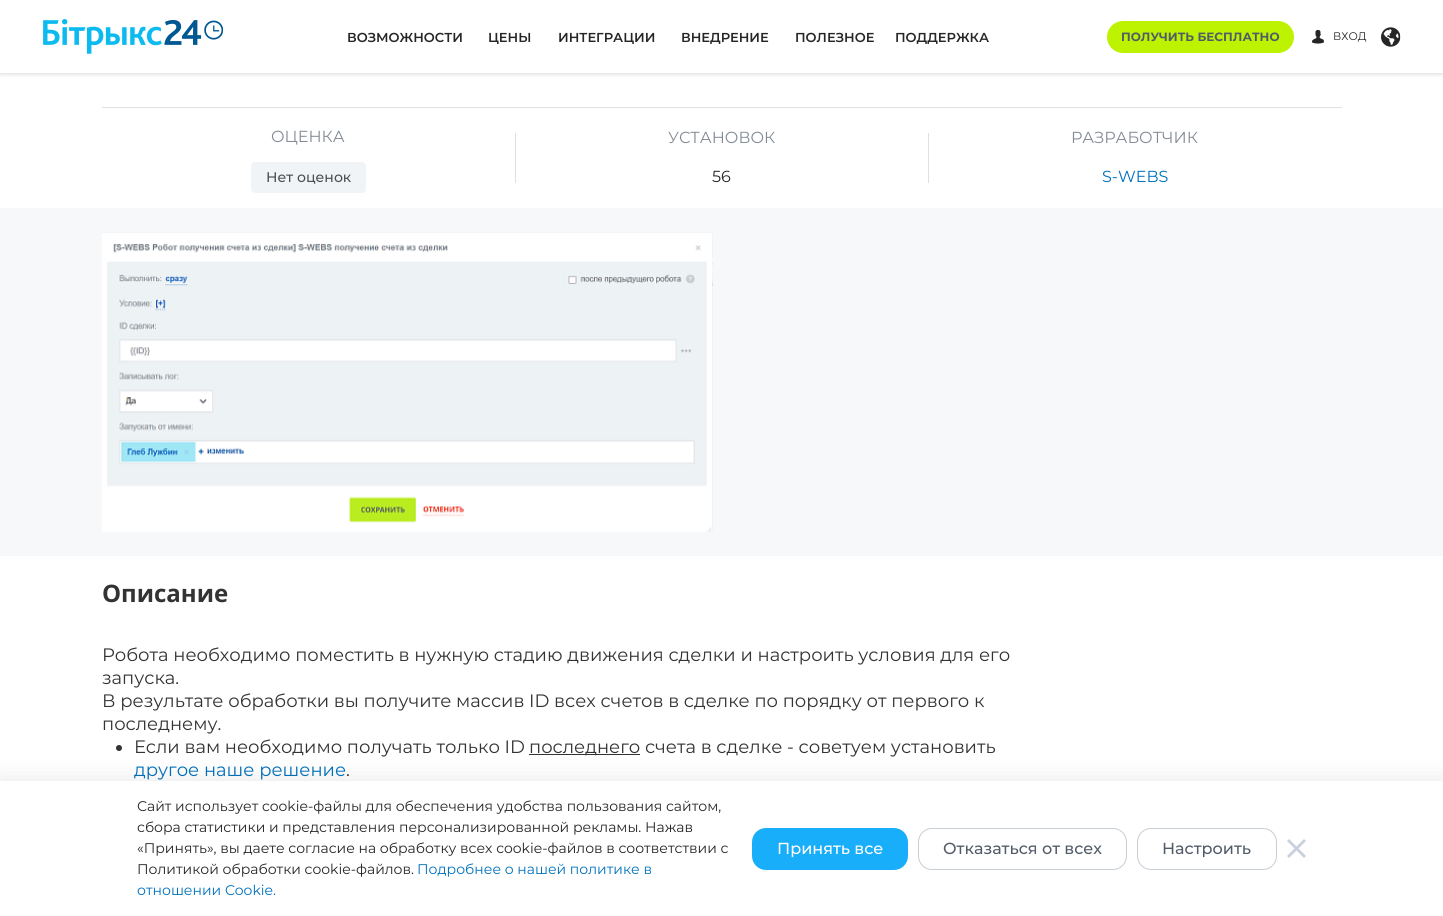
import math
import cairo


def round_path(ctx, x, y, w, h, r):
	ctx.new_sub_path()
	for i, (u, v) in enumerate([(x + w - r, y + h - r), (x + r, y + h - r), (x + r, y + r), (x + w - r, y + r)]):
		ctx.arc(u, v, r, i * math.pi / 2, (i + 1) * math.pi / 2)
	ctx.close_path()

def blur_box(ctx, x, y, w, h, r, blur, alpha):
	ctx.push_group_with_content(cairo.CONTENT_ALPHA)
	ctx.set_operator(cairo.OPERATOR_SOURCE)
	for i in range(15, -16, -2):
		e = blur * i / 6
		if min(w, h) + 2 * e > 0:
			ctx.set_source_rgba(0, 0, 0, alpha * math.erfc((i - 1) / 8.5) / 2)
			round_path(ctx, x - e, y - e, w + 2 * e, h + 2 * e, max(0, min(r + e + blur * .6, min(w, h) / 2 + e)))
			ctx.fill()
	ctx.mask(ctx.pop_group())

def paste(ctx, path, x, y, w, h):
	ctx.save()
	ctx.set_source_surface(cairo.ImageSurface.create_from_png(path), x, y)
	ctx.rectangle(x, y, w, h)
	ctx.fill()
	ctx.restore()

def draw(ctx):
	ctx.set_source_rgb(1, 1, 1)
	ctx.paint()
	ctx.set_source_rgb(0, 0, 0)
	blur_box(ctx, 0, 2, 1443, 73, 0, 1.5, 0.1)
	ctx.set_source_rgb(1, 1, 1)
	ctx.rectangle(0, 0, 1443, 73)
	ctx.fill()
	paste(ctx, 'media/1.png', 43, 19, 180, 35)
	ctx.select_font_face('Montserrat SemiBold')
	ctx.set_font_size(13)
	ctx.set_source_rgb(0.149, 0.149, 0.149)
	for x, y, s in [
		(347, 42, 'ВОЗМОЖНОСТИ'),
		(488, 42, 'ЦЕНЫ'),
		(558, 42, 'ИНТЕГРАЦИИ'),
		(681, 42, 'ВНЕДРЕНИЕ'),
		(795, 42, 'ПОЛЕЗНОЕ'),
		(895, 42, 'ПОДДЕРЖКА'),
	]:
		ctx.move_to(x, y)
		ctx.show_text(s)
	ctx.set_source_rgb(0.741, 0.953, 0)
	round_path(ctx, 1108, 22, 185, 30, 15)
	ctx.fill_preserve()
	ctx.stroke()
	ctx.select_font_face('Montserrat', cairo.FONT_SLANT_NORMAL, cairo.FONT_WEIGHT_BOLD)
	ctx.set_font_size(12)
	ctx.set_source_rgb(0.322, 0.361, 0.412)
	ctx.move_to(1121, 41)
	ctx.show_text('ПОЛУЧИТЬ БЕСПЛАТНО')
	paste(ctx, 'media/2.png', 1312, 29, 12, 15)
	ctx.select_font_face('Montserrat')
	ctx.set_font_size(11)
	ctx.set_source_rgb(0.149, 0.149, 0.149)
	ctx.move_to(1333, 40)
	ctx.show_text('ВХОД')
	paste(ctx, 'media/3.png', 1381, 27, 20, 20)
	ctx.set_source_rgb(0.875, 0.878, 0.89)
	ctx.rectangle(102, 107, 1240, 1)
	ctx.fill()
	ctx.set_font_size(16)
	ctx.set_source_rgb(0.51, 0.545, 0.584)
	ctx.move_to(271, 142)
	ctx.show_text('ОЦЕНКА')
	ctx.set_source_rgb(0.875, 0.878, 0.89)
	ctx.rectangle(515, 133, 1, 50)
	ctx.fill()
	ctx.set_source_rgb(0.945, 0.957, 0.965)
	round_path(ctx, 251, 162, 115, 31, 4)
	ctx.fill()
	ctx.select_font_face('Montserrat Medium')
	ctx.set_font_size(14)
	ctx.set_source_rgb(0.31, 0.31, 0.314)
	ctx.move_to(266, 182)
	ctx.show_text('Нет оценок')
	ctx.select_font_face('Montserrat')
	ctx.set_font_size(16)
	ctx.set_source_rgb(0.51, 0.545, 0.584)
	ctx.move_to(668, 143)
	ctx.show_text('УСТАНОВОК')
	ctx.set_source_rgb(0.875, 0.878, 0.89)
	ctx.rectangle(928, 133, 1, 50)
	ctx.fill()
	ctx.set_source_rgb(0.149, 0.149, 0.149)
	ctx.move_to(712, 182)
	ctx.show_text('56')
	ctx.set_source_rgb(0.51, 0.545, 0.584)
	ctx.move_to(1071, 143)
	ctx.show_text('РАЗРАБОТЧИК')
	ctx.set_source_rgb(0, 0.443, 0.741)
	ctx.move_to(1102, 182)
	ctx.show_text('S-WEBS')
	ctx.set_source_rgb(0.961, 0.969, 0.973)
	ctx.rectangle(0, 208, 1443, 348)
	ctx.fill()
	paste(ctx, 'media/4.png', 102, 232, 611, 300)
	ctx.select_font_face('Open Sans', cairo.FONT_SLANT_NORMAL, cairo.FONT_WEIGHT_BOLD)
	ctx.set_font_size(24)
	ctx.set_source_rgb(0.2, 0.2, 0.2)
	ctx.move_to(102, 602)
	ctx.show_text('Описание')
	ctx.select_font_face('Montserrat')
	ctx.set_font_size(18)
	for x, y, s in [
		(102, 661, 'Робота необходимо поместить в нужную стадию движения сделки и настроить условия для его'),
		(102, 684, 'запуска.'),
		(102, 707, 'В результате обработки вы получите массив ID всех счетов в сделке по порядку от первого к'),
		(102, 730, 'последнему.'),
	]:
		ctx.move_to(x, y)
		ctx.show_text(s)
	ctx.new_path()
	ctx.arc(119, 748, 3, 0, 2 * math.pi)
	ctx.fill()
	ctx.move_to(134, 753)
	ctx.show_text('Если вам необходимо получать только ID')
	ctx.rectangle(529, 754, 111, 1)
	ctx.fill()
	ctx.move_to(529, 753)
	ctx.show_text('последнего счета в сделке - советуем установить')
	ctx.set_source_rgb(0, 0.443, 0.741)
	ctx.move_to(134, 776)
	ctx.show_text('другое наше решение')
	ctx.set_source_rgb(0.2, 0.2, 0.2)
	ctx.move_to(346, 776)
	ctx.show_text('.')
	ctx.set_source_rgb(0, 0, 0)
	blur_box(ctx, 0, 781, 1443, 135, 0, 12, 0.1)
	ctx.set_source_rgb(1, 1, 1)
	ctx.rectangle(0, 781, 1443, 135)
	ctx.fill()
	ctx.set_font_size(14)
	ctx.set_source_rgb(0.149, 0.149, 0.149)
	for x, y, s in [
		(137, 811, 'Сайт использует cookie-файлы для обеспечения удобства пользования сайтом,'),
		(137, 832, 'сбора статистики и представления персонализированной рекламы. Нажав'),
		(137, 853, '«Принять», вы даете согласие на обработку всех cookie-файлов в соответствии с'),
		(137, 874, 'Политикой обработки cookie-файлов.'),
	]:
		ctx.move_to(x, y)
		ctx.show_text(s)
	ctx.set_source_rgb(0, 0.443, 0.741)
	ctx.move_to(417, 874)
	ctx.show_text('Подробнее о нашей политике в')
	ctx.move_to(137, 895)
	ctx.show_text('отношении Cookie.')
	ctx.set_source_rgb(0.098, 0.682, 0.976)
	round_path(ctx, 752, 828, 156, 42, 14)
	ctx.fill()
	ctx.select_font_face('Montserrat Medium')
	ctx.set_font_size(16)
	ctx.set_source_rgb(1, 1, 1)
	ctx.move_to(777, 854)
	ctx.show_text('Принять все')
	round_path(ctx, 918.5, 828.5, 208, 41, 13.5)
	ctx.set_source_rgb(0.776, 0.804, 0.827)
	ctx.set_line_width(1)
	ctx.stroke()
	ctx.set_source_rgb(0.322, 0.361, 0.412)
	ctx.move_to(943, 854)
	ctx.show_text('Отказаться от всех')
	round_path(ctx, 1137.5, 828.5, 139, 41, 13.5)
	ctx.set_source_rgb(0.776, 0.804, 0.827)
	ctx.stroke()
	ctx.set_source_rgb(0.322, 0.361, 0.412)
	ctx.move_to(1162, 854)
	ctx.show_text('Настроить')
	ctx.set_source_rgb(0.792, 0.816, 0.871)
	ctx.new_path()
	ctx.move_to(1289, 839)
	ctx.line_to(1306, 856)
	ctx.line_to(1304, 858)
	ctx.line_to(1287, 841)
	ctx.close_path()
	ctx.fill()
	ctx.new_path()
	ctx.move_to(1287, 856)
	ctx.line_to(1304, 839)
	ctx.line_to(1306, 841)
	ctx.line_to(1289, 858)
	ctx.close_path()
	ctx.fill()


surface = cairo.ImageSurface(cairo.FORMAT_RGB24, 1443, 916)
ctx = cairo.Context(surface)
options = cairo.FontOptions()
options.set_hint_metrics(cairo.HINT_METRICS_OFF)
options.set_hint_style(cairo.HINT_STYLE_NONE)
ctx.set_font_options(options)
ctx.set_miter_limit(4)
draw(ctx)
surface.write_to_png('image.png')
